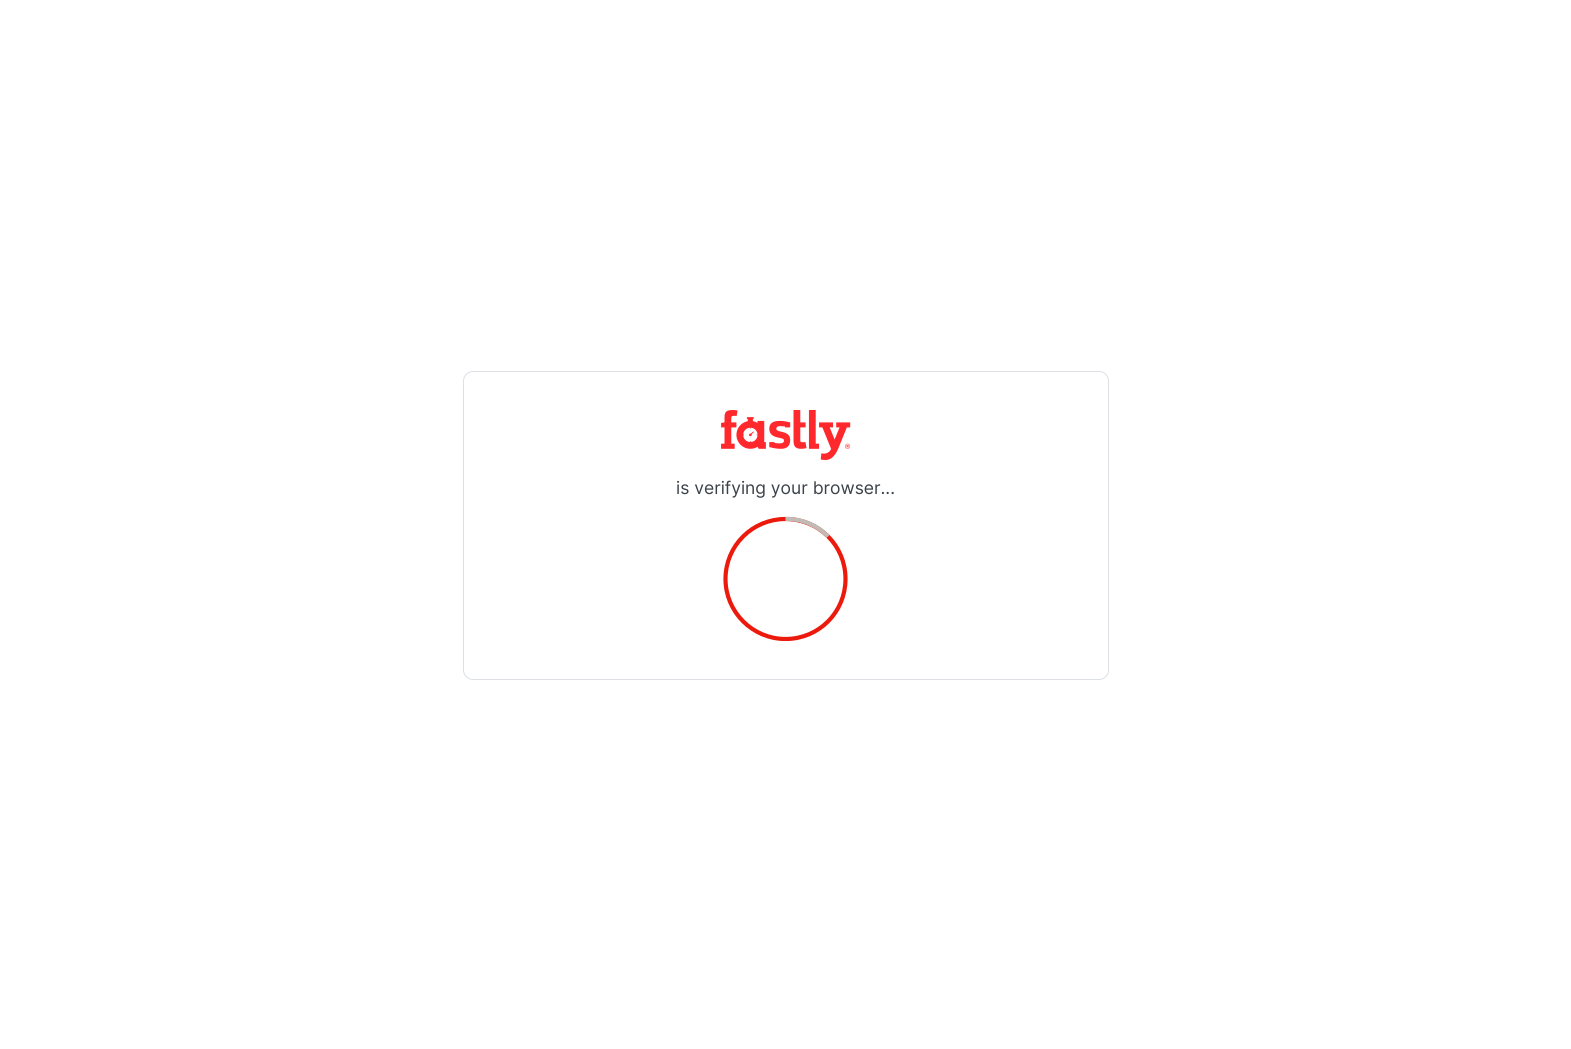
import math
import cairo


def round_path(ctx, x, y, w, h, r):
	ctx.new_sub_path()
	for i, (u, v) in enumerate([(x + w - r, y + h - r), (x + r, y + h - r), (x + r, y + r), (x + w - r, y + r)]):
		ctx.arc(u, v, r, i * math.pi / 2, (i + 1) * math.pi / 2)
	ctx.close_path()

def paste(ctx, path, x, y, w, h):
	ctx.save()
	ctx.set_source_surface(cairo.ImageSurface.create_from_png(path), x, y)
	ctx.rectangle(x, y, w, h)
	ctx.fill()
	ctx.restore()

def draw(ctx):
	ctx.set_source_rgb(1, 1, 1)
	ctx.paint()
	round_path(ctx, 463.5, 371.5, 645, 308, 9.5)
	ctx.set_source_rgb(0.863, 0.878, 0.894)
	ctx.set_line_width(1)
	ctx.stroke()
	paste(ctx, 'media/1.png', 721, 410, 130, 50)
	ctx.select_font_face('Inter')
	ctx.set_font_size(17.5)
	ctx.set_source_rgb(0.227, 0.259, 0.29)
	ctx.move_to(676, 494)
	ctx.show_text('is verifying your browser...')
	ctx.save()
	ctx.rectangle(501, 516, 569, 125)
	ctx.clip()
	ctx.new_path()
	ctx.move_to(725.5, 579)
	ctx.curve_to(725.5, 545.5, 752.5, 519, 785.5, 519)
	ctx.curve_to(819, 519, 845.5, 545.5, 845.5, 579)
	ctx.curve_to(845.5, 612, 819, 639, 785.5, 639)
	ctx.curve_to(752.5, 639, 725.5, 612, 725.5, 579)
	ctx.close_path()
	ctx.set_source_rgb(0.922, 0.102, 0.047)
	ctx.set_line_width(4.2)
	ctx.stroke()
	ctx.restore()
	ctx.new_path()
	ctx.move_to(828, 536.5)
	ctx.curve_to(817, 525, 801.5, 518.5, 785.5, 519)
	ctx.set_source_rgb(0.761, 0.729, 0.71)
	ctx.set_line_width(4.2)
	ctx.stroke()


surface = cairo.ImageSurface(cairo.FORMAT_RGB24, 1571, 1049)
ctx = cairo.Context(surface)
options = cairo.FontOptions()
options.set_hint_metrics(cairo.HINT_METRICS_OFF)
options.set_hint_style(cairo.HINT_STYLE_NONE)
ctx.set_font_options(options)
ctx.set_miter_limit(4)
draw(ctx)
surface.write_to_png('image.png')
